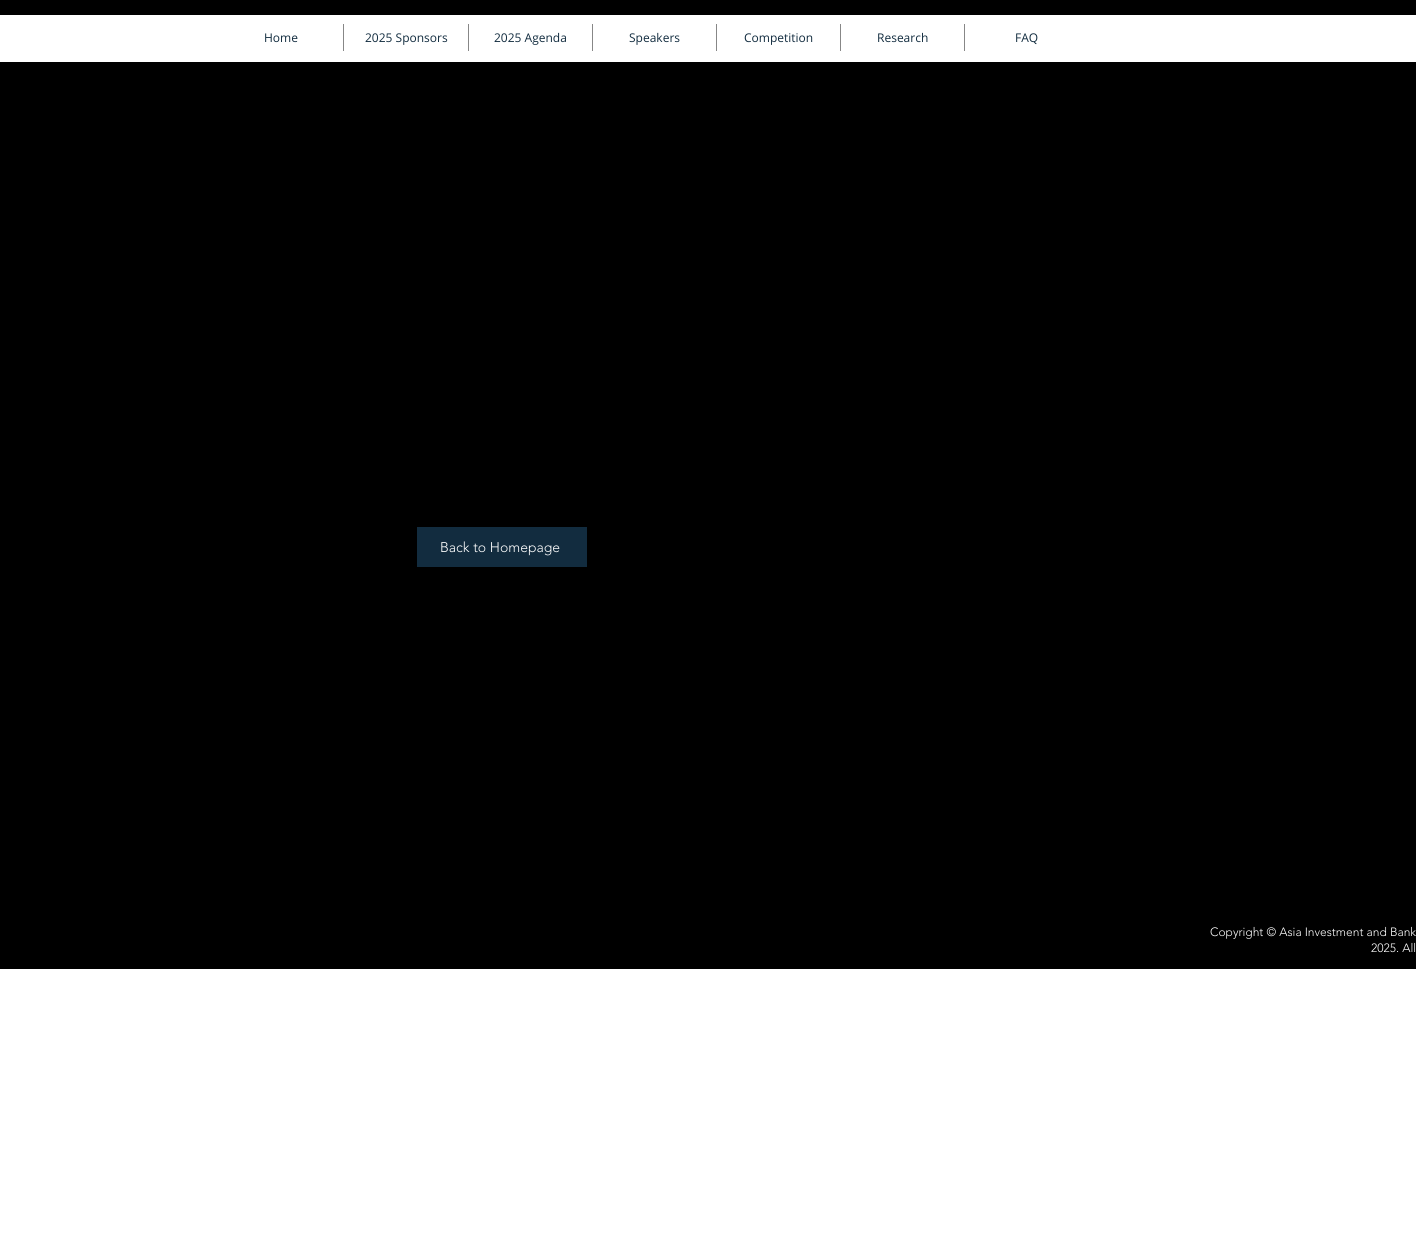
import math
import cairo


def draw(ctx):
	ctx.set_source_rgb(1, 1, 1)
	ctx.paint()
	ctx.set_source_rgb(0, 0, 0)
	ctx.rectangle(0, 0, 1416, 15)
	ctx.fill()
	ctx.select_font_face('Open Sans')
	ctx.set_font_size(12)
	ctx.set_source_rgb(0.071, 0.173, 0.247)
	ctx.move_to(264, 42)
	ctx.show_text('Home')
	ctx.set_source_rgb(0.529, 0.529, 0.529)
	ctx.rectangle(343, 24, 1, 27)
	ctx.fill()
	ctx.set_source_rgb(0.071, 0.173, 0.247)
	ctx.move_to(365, 42)
	ctx.show_text('2025 Sponsors')
	ctx.set_source_rgb(0.529, 0.529, 0.529)
	ctx.rectangle(468, 24, 1, 27)
	ctx.fill()
	ctx.set_source_rgb(0.071, 0.173, 0.247)
	ctx.move_to(494, 42)
	ctx.show_text('2025 Agenda')
	ctx.set_source_rgb(0.529, 0.529, 0.529)
	ctx.rectangle(592, 24, 1, 27)
	ctx.fill()
	ctx.set_source_rgb(0.071, 0.173, 0.247)
	ctx.move_to(629, 42)
	ctx.show_text('Speakers')
	ctx.set_source_rgb(0.529, 0.529, 0.529)
	ctx.rectangle(716, 24, 1, 27)
	ctx.fill()
	ctx.set_source_rgb(0.071, 0.173, 0.247)
	ctx.move_to(744, 42)
	ctx.show_text('Competition')
	ctx.set_source_rgb(0.529, 0.529, 0.529)
	ctx.rectangle(840, 24, 1, 27)
	ctx.fill()
	ctx.set_source_rgb(0.071, 0.173, 0.247)
	ctx.move_to(877, 42)
	ctx.show_text('Research')
	ctx.set_source_rgb(0.529, 0.529, 0.529)
	ctx.rectangle(964, 24, 1, 27)
	ctx.fill()
	ctx.set_source_rgb(0.071, 0.173, 0.247)
	ctx.move_to(1015, 42)
	ctx.show_text('FAQ')
	ctx.set_source_rgb(0, 0, 0)
	ctx.rectangle(0, 62, 1416, 907)
	ctx.fill()
	ctx.set_source_rgb(0.071, 0.173, 0.247)
	ctx.rectangle(417, 527, 170, 40)
	ctx.fill()
	ctx.select_font_face('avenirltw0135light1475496 Light')
	ctx.set_font_size(14)
	ctx.set_source_rgb(1, 1, 1)
	ctx.move_to(440, 552)
	ctx.show_text('Back to Homepage')
	ctx.set_font_size(12)
	ctx.move_to(1210, 936)
	ctx.show_text('Copyright © Asia Investment and Bank')
	ctx.move_to(1371, 952)
	ctx.show_text('2025. All')


surface = cairo.ImageSurface(cairo.FORMAT_RGB24, 1416, 1241)
ctx = cairo.Context(surface)
options = cairo.FontOptions()
options.set_hint_metrics(cairo.HINT_METRICS_OFF)
options.set_hint_style(cairo.HINT_STYLE_NONE)
ctx.set_font_options(options)
ctx.set_miter_limit(4)
draw(ctx)
surface.write_to_png('image.png')
